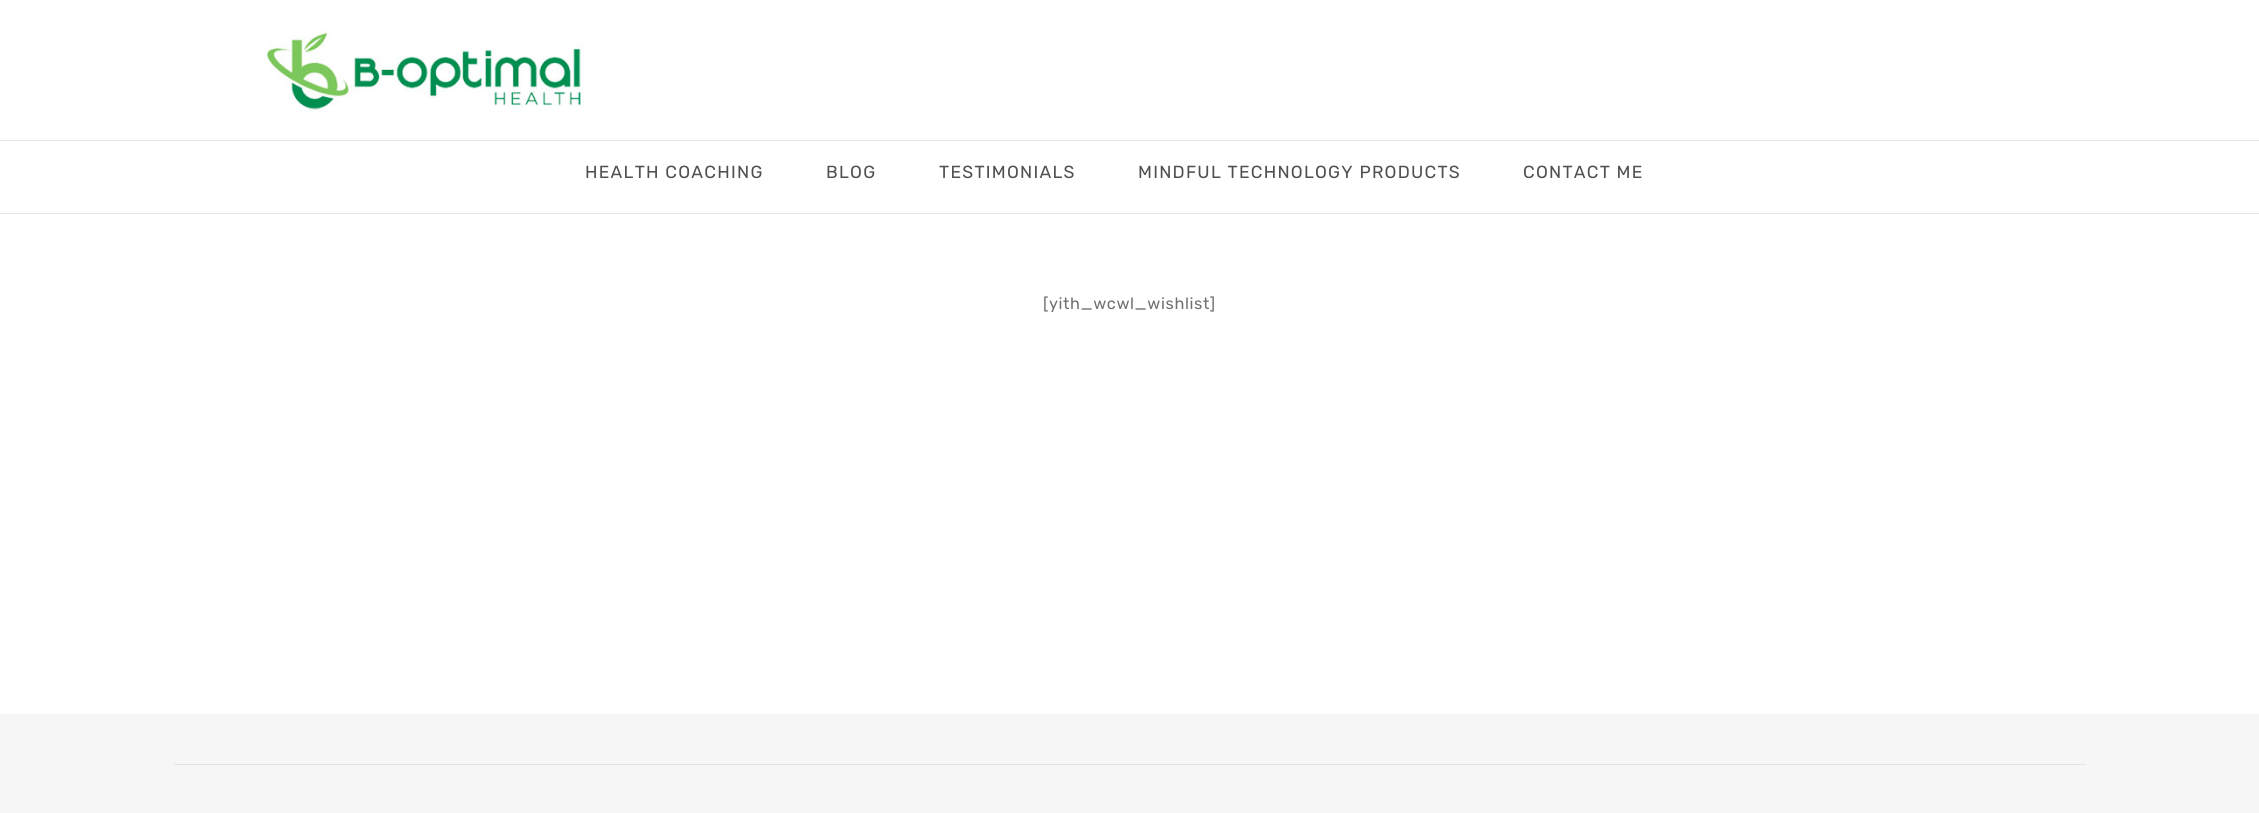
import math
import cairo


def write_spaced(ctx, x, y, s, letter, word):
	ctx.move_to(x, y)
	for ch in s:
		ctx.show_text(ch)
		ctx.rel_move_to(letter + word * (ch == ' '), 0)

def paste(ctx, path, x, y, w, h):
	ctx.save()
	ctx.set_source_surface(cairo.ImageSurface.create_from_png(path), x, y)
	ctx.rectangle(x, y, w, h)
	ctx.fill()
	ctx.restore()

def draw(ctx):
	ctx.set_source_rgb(1, 1, 1)
	ctx.paint()
	paste(ctx, 'media/1.png', 263, 29, 322, 84)
	ctx.set_source_rgb(0.894, 0.894, 0.894)
	ctx.rectangle(0, 140, 2259, 1)
	ctx.fill()
	ctx.rectangle(0, 213, 2259, 1)
	ctx.fill()
	ctx.select_font_face('Rubik Light')
	ctx.set_font_size(17.5)
	ctx.set_source_rgb(0.314, 0.314, 0.314)
	for x, y, s in [
		(585, 178, 'HEALTH COACHING'),
		(826, 178, 'BLOG'),
		(939, 178, 'TESTIMONIALS'),
		(1138, 178, 'MINDFUL TECHNOLOGY PRODUCTS'),
		(1523, 178, 'CONTACT ME'),
	]:
		write_spaced(ctx, x, y, s, 1.25, 0)
	ctx.set_font_size(16.25)
	ctx.set_source_rgb(0.439, 0.439, 0.439)
	write_spaced(ctx, 1043, 309, '[yith_wcwl_wishlist]', 0.6, 0)
	ctx.set_source_rgb(0.961, 0.961, 0.961)
	ctx.rectangle(0, 714, 2259, 99)
	ctx.fill()
	ctx.set_source_rgb(0.894, 0.894, 0.894)
	ctx.rectangle(174, 764, 1912, 1)
	ctx.fill()


surface = cairo.ImageSurface(cairo.FORMAT_RGB24, 2259, 813)
ctx = cairo.Context(surface)
options = cairo.FontOptions()
options.set_hint_metrics(cairo.HINT_METRICS_OFF)
options.set_hint_style(cairo.HINT_STYLE_NONE)
ctx.set_font_options(options)
ctx.set_miter_limit(4)
draw(ctx)
surface.write_to_png('image.png')
